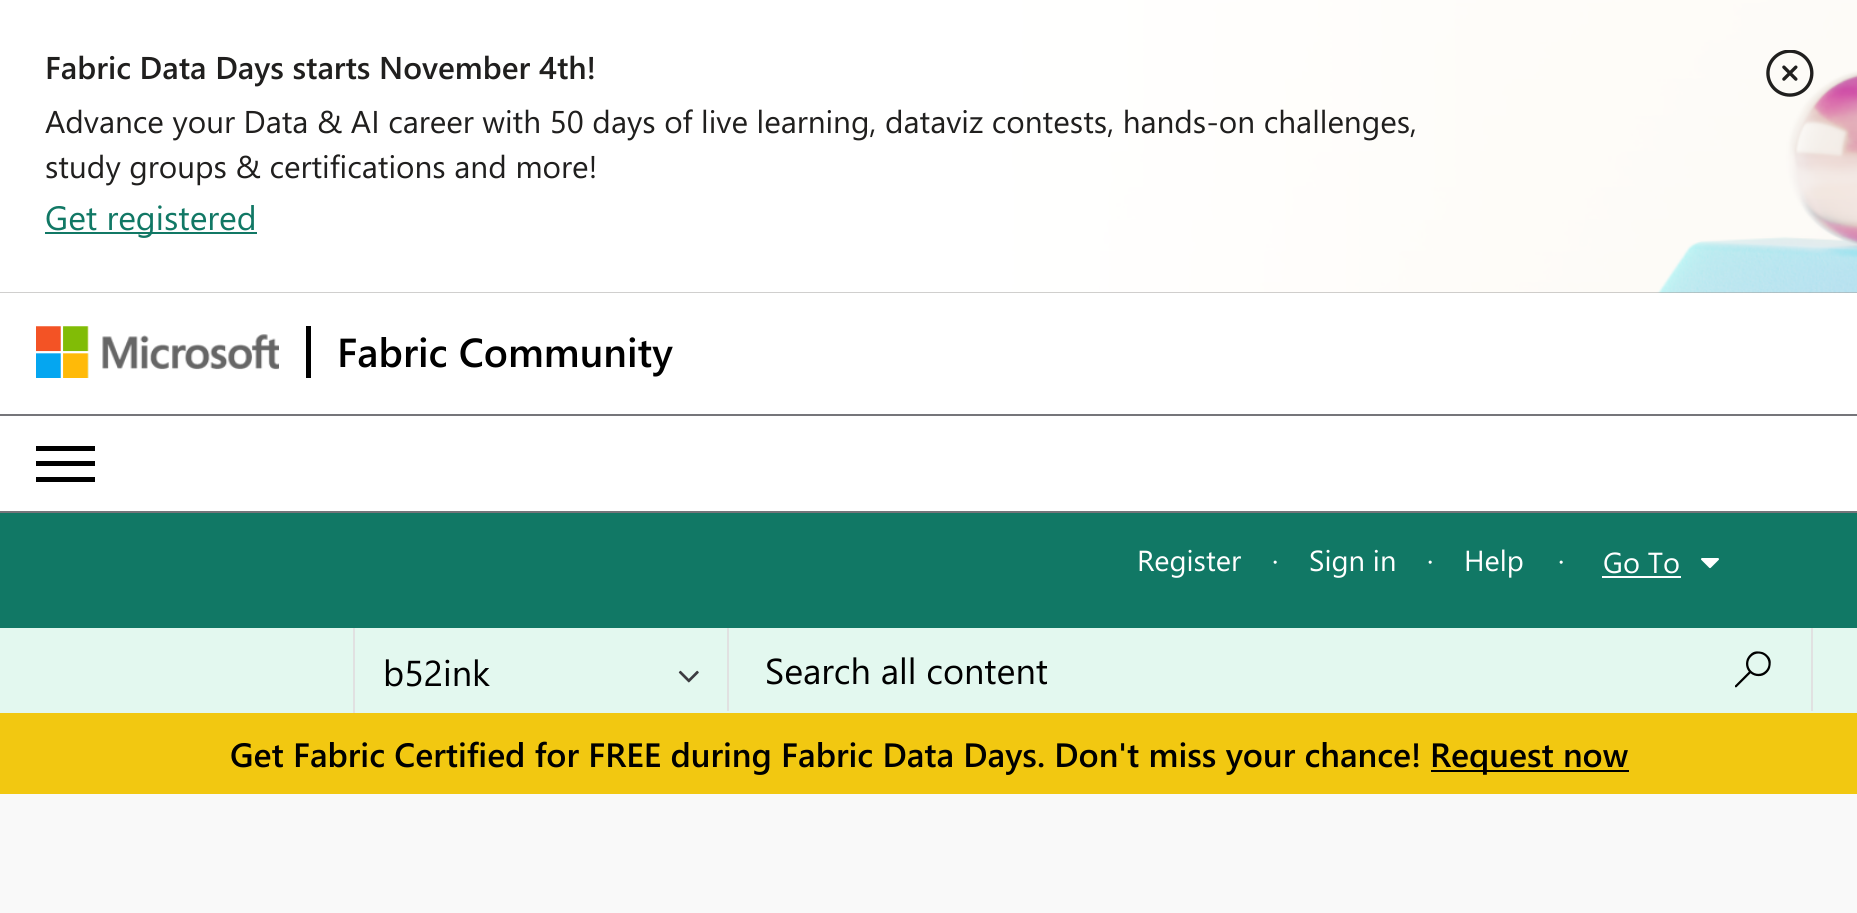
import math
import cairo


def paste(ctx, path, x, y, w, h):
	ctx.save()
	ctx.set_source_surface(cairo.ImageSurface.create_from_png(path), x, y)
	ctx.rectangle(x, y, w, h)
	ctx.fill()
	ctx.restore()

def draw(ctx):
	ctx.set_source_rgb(0.973, 0.973, 0.973)
	ctx.paint()
	ctx.set_source_rgb(0.631, 0.624, 0.616)
	ctx.rectangle(0, 292, 1857, 1)
	ctx.fill()
	paste(ctx, 'media/1.png', 0, 0, 1857, 293)
	ctx.select_font_face('Segoe UI SemiBold')
	ctx.set_font_size(31.5)
	ctx.set_source_rgb(0.125, 0.122, 0.118)
	ctx.move_to(45, 79)
	ctx.show_text('Fabric Data Days starts November 4th!')
	ctx.select_font_face('Segoe UI')
	ctx.move_to(45, 133)
	ctx.show_text('Advance your Data & AI career with 50 days of live learning, dataviz contests, hands-on challenges,')
	ctx.move_to(45, 178)
	ctx.show_text('study groups & certifications and more!')
	ctx.set_source_rgb(0.067, 0.471, 0.396)
	ctx.rectangle(45, 232, 212, 2)
	ctx.fill()
	ctx.set_font_size(33.75)
	ctx.move_to(45, 230)
	ctx.show_text('Get registered')
	paste(ctx, 'media/2.png', 1766, 50, 48, 47)
	ctx.set_source_rgb(1, 1, 1)
	ctx.rectangle(0, 293, 1857, 218)
	ctx.fill()
	paste(ctx, 'media/3.png', 36, 326, 243, 52)
	ctx.set_source_rgb(0, 0, 0)
	ctx.rectangle(306, 326, 5, 52)
	ctx.fill()
	ctx.select_font_face('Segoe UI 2 SemiBold')
	ctx.set_font_size(40.5)
	ctx.move_to(337, 367)
	ctx.show_text('Fabric Community')
	ctx.set_source_rgb(0.459, 0.459, 0.478)
	ctx.rectangle(0, 414, 1857, 2)
	ctx.rectangle(0, 511, 1857, 2)
	ctx.fill()
	ctx.set_source_rgb(0, 0, 0)
	ctx.rectangle(36, 446, 59, 5)
	ctx.rectangle(36, 461, 59, 5)
	ctx.rectangle(36, 477, 59, 5)
	ctx.fill()
	ctx.set_source_rgb(0.067, 0.471, 0.396)
	ctx.rectangle(0, 513, 1857, 115)
	ctx.fill()
	ctx.select_font_face('Segoe UI')
	ctx.set_font_size(29)
	ctx.set_source_rgb(1, 1, 1)
	for x, y, s in [
		(1137, 571, 'Register'),
		(1272, 571, '·'),
		(1309, 571, 'Sign in'),
		(1427, 571, '·'),
		(1464, 571, 'Help'),
		(1558, 571, '·'),
		(1603, 573, 'Go To'),
	]:
		ctx.move_to(x, y)
		ctx.show_text(s)
	ctx.rectangle(1602, 576, 79, 2)
	ctx.fill()
	paste(ctx, 'media/4.png', 1701, 558, 18, 11)
	ctx.set_source_rgb(0.89, 0.969, 0.937)
	ctx.rectangle(0, 628, 1857, 85)
	ctx.fill()
	ctx.set_source_rgb(0.882, 0.882, 0.882)
	ctx.rectangle(353, 628, 2, 85)
	ctx.fill()
	ctx.set_font_size(36)
	ctx.set_source_rgb(0, 0, 0)
	ctx.move_to(383, 686)
	ctx.show_text('b52ink')
	paste(ctx, 'media/5.png', 678, 670, 21, 13)
	ctx.set_source_rgb(0.882, 0.882, 0.882)
	ctx.rectangle(1811, 628, 2, 83)
	ctx.fill()
	ctx.rectangle(727, 628, 2, 83)
	ctx.fill()
	ctx.set_source_rgb(0, 0, 0)
	ctx.move_to(765, 684)
	ctx.show_text('Search all content')
	paste(ctx, 'media/6.png', 1735, 651, 36, 37)
	ctx.set_source_rgb(0.949, 0.784, 0.067)
	ctx.rectangle(0, 713, 1857, 81)
	ctx.fill()
	ctx.select_font_face('Segoe UI SemiBold')
	ctx.set_font_size(33.75)
	ctx.set_source_rgb(0, 0, 0)
	ctx.move_to(230, 767)
	ctx.show_text('Get Fabric Certified for FREE during Fabric Data Days. Don\'t miss your chance!')
	ctx.rectangle(1431, 770, 198, 2)
	ctx.fill()
	ctx.move_to(1430, 767)
	ctx.show_text('Request now')


surface = cairo.ImageSurface(cairo.FORMAT_RGB24, 1857, 913)
ctx = cairo.Context(surface)
options = cairo.FontOptions()
options.set_hint_metrics(cairo.HINT_METRICS_OFF)
options.set_hint_style(cairo.HINT_STYLE_NONE)
ctx.set_font_options(options)
ctx.set_miter_limit(4)
draw(ctx)
surface.write_to_png('image.png')
